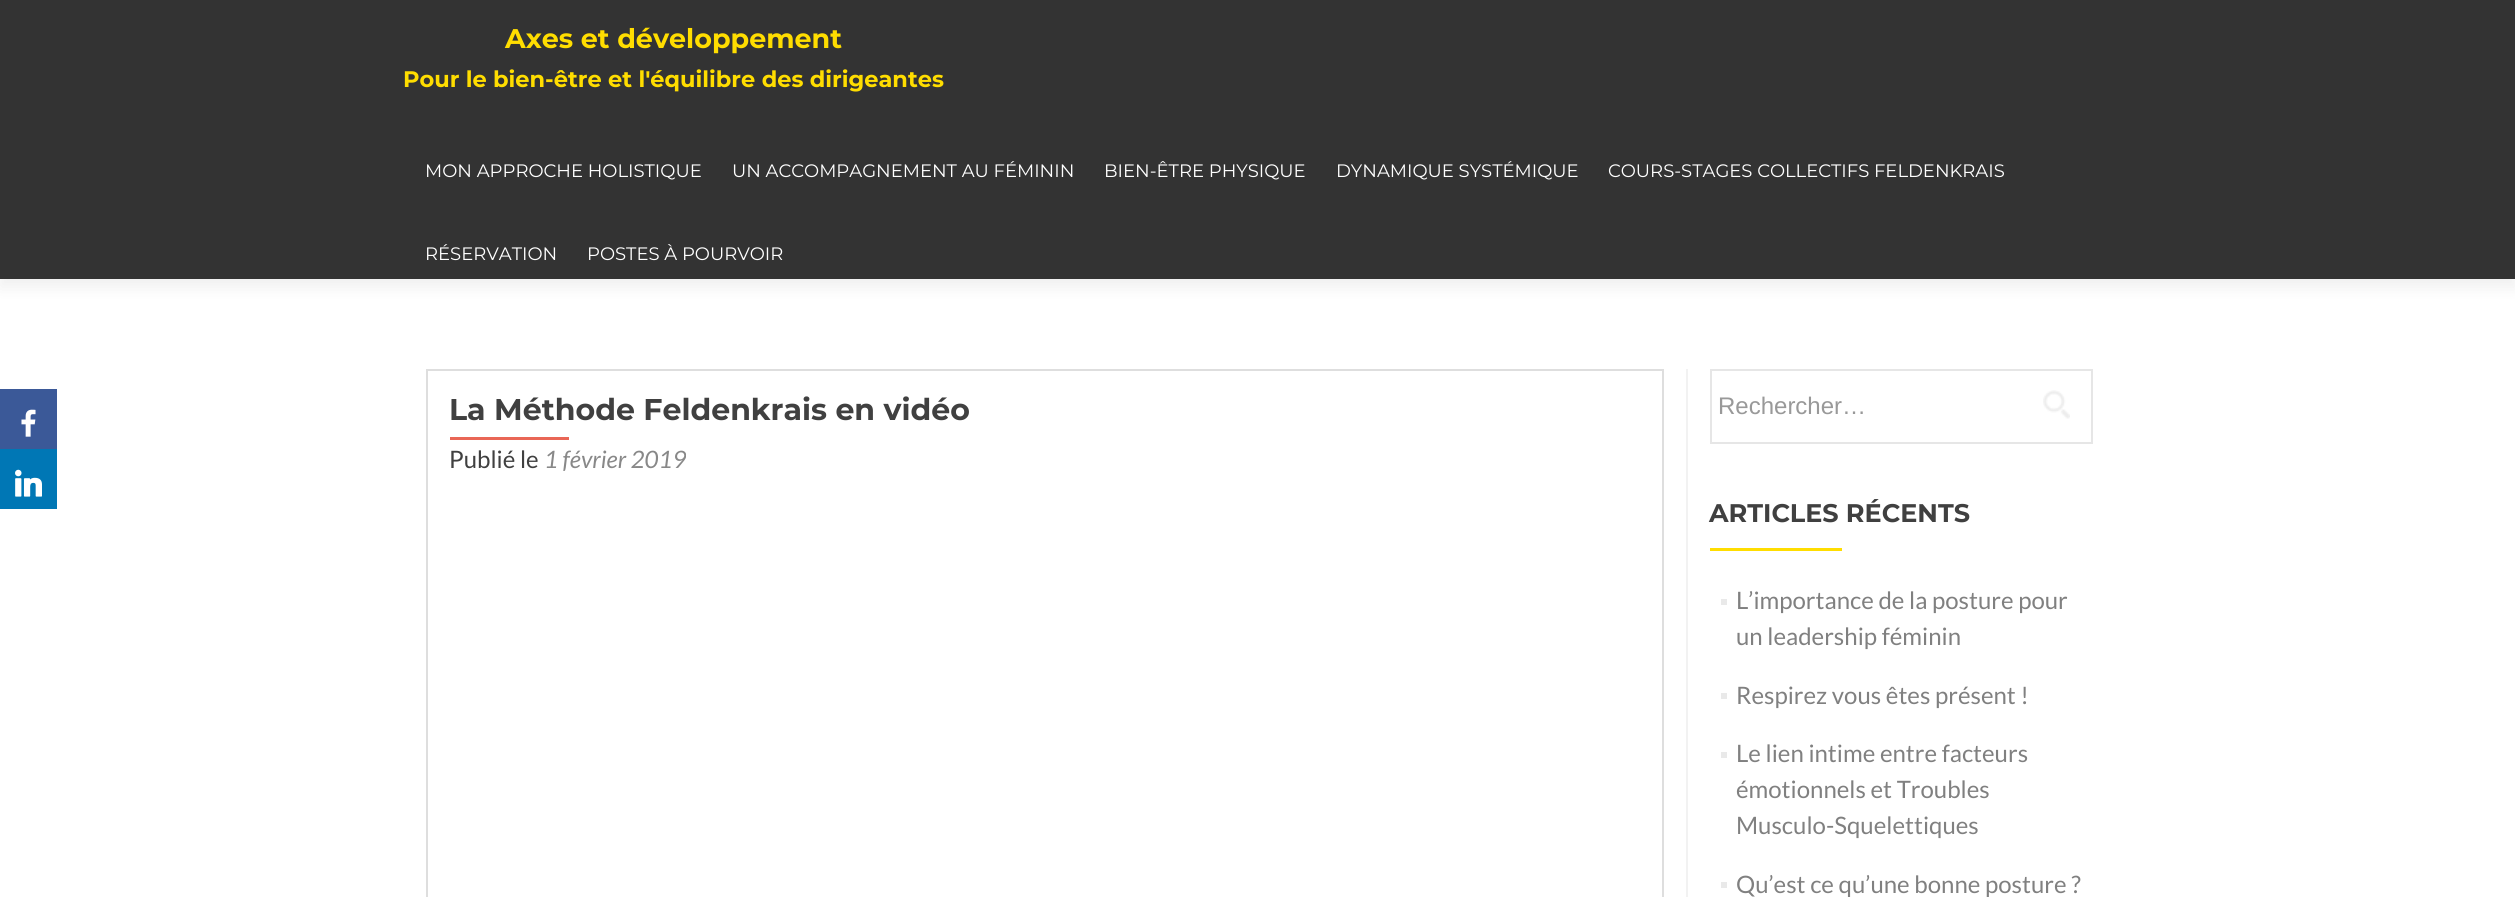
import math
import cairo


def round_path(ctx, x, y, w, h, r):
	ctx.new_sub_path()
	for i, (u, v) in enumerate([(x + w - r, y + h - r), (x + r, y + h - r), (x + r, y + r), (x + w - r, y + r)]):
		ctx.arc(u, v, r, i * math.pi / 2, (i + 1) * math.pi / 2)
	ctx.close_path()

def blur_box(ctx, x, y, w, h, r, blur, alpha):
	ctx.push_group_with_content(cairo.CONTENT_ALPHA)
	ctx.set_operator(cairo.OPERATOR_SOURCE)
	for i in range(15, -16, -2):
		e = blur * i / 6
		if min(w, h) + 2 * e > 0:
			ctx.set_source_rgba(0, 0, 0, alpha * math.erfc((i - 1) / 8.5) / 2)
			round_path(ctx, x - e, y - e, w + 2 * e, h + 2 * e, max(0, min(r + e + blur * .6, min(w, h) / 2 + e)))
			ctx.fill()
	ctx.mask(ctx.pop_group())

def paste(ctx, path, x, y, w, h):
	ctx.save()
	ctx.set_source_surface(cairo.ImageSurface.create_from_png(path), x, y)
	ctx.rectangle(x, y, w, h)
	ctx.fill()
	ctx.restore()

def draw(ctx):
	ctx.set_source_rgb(1, 1, 1)
	ctx.paint()
	ctx.set_source_rgb(0.196, 0.196, 0.196)
	blur_box(ctx, 0, 8, 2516, 279, 0, 8, 0.08)
	ctx.set_source_rgb(0.2, 0.2, 0.2)
	ctx.rectangle(0, 0, 2515, 279)
	ctx.fill()
	ctx.select_font_face('Montserrat', cairo.FONT_SLANT_NORMAL, cairo.FONT_WEIGHT_BOLD)
	ctx.set_font_size(27)
	ctx.set_source_rgb(1, 0.867, 0)
	ctx.move_to(505, 48)
	ctx.show_text('Axes et développement')
	ctx.set_font_size(22.5)
	ctx.move_to(403, 87)
	ctx.show_text('Pour le bien-être et l\'équilibre des dirigeantes')
	ctx.select_font_face('Montserrat')
	ctx.set_font_size(18)
	ctx.set_source_rgb(1, 1, 1)
	for x, y, s in [
		(425, 177, 'MON APPROCHE HOLISTIQUE'),
		(732, 177, 'UN ACCOMPAGNEMENT AU FÉMININ'),
		(1104, 177, 'BIEN-ÊTRE PHYSIQUE'),
		(1336, 177, 'DYNAMIQUE SYSTÉMIQUE'),
		(1608, 177, 'COURS-STAGES COLLECTIFS FELDENKRAIS'),
		(425, 260, 'RÉSERVATION'),
		(587, 260, 'POSTES À POURVOIR'),
	]:
		ctx.move_to(x, y)
		ctx.show_text(s)
	ctx.set_source_rgb(0.231, 0.349, 0.596)
	ctx.rectangle(0, 389, 57, 60)
	ctx.fill()
	paste(ctx, 'media/1.png', 21, 409, 15, 28)
	ctx.set_source_rgb(0, 0.467, 0.71)
	ctx.rectangle(0, 449, 57, 60)
	ctx.fill()
	paste(ctx, 'media/2.png', 15, 469, 27, 28)
	ctx.rectangle(427, 370, 1236, 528)
	ctx.set_source_rgb(0.871, 0.871, 0.871)
	ctx.stroke()
	ctx.select_font_face('Montserrat', cairo.FONT_SLANT_NORMAL, cairo.FONT_WEIGHT_BOLD)
	ctx.set_font_size(30)
	ctx.set_source_rgb(0.251, 0.251, 0.251)
	ctx.move_to(449, 420)
	ctx.show_text('La Méthode Feldenkrais en vidéo')
	ctx.set_source_rgb(0.914, 0.4, 0.337)
	ctx.rectangle(450, 437, 119, 3)
	ctx.fill()
	ctx.select_font_face('Lato')
	ctx.set_font_size(24)
	ctx.set_source_rgb(0.251, 0.251, 0.251)
	ctx.move_to(449, 468)
	ctx.show_text('Publié le')
	ctx.select_font_face('Lato', cairo.FONT_SLANT_ITALIC)
	ctx.set_source_rgb(0.533, 0.533, 0.533)
	ctx.move_to(544, 468)
	ctx.show_text('1 février 2019')
	ctx.set_source_rgb(0.949, 0.949, 0.949)
	ctx.rectangle(1686, 369, 2, 528)
	ctx.fill()
	ctx.rectangle(1711, 370, 381, 73)
	ctx.set_source_rgb(0.902, 0.902, 0.902)
	ctx.stroke()
	ctx.select_font_face('Liberation Sans')
	ctx.set_source_rgb(0.6, 0.6, 0.6)
	ctx.move_to(1718, 414)
	ctx.show_text('Rechercher…')
	paste(ctx, 'media/3.png', 2043, 390, 27, 29)
	ctx.select_font_face('Montserrat', cairo.FONT_SLANT_NORMAL, cairo.FONT_WEIGHT_BOLD)
	ctx.set_font_size(25.5)
	ctx.set_source_rgb(0.251, 0.251, 0.251)
	ctx.move_to(1709, 522)
	ctx.show_text('ARTICLES RÉCENTS')
	ctx.set_source_rgb(1, 0.867, 0)
	ctx.rectangle(1710, 548, 132, 3)
	ctx.fill()
	ctx.set_source_rgb(0.914, 0.914, 0.914)
	ctx.rectangle(1721, 599, 6, 6)
	ctx.fill()
	ctx.select_font_face('Lato')
	ctx.set_font_size(24)
	ctx.set_source_rgb(0.502, 0.502, 0.502)
	ctx.move_to(1736, 609)
	ctx.show_text('L’importance de la posture pour')
	ctx.move_to(1736, 645)
	ctx.show_text('un leadership féminin')
	ctx.set_source_rgb(0.914, 0.914, 0.914)
	ctx.rectangle(1721, 693, 6, 6)
	ctx.fill()
	ctx.set_source_rgb(0.502, 0.502, 0.502)
	ctx.move_to(1736, 704)
	ctx.show_text('Respirez vous êtes présent !')
	ctx.set_source_rgb(0.914, 0.914, 0.914)
	ctx.rectangle(1721, 752, 6, 6)
	ctx.fill()
	ctx.set_source_rgb(0.502, 0.502, 0.502)
	for x, y, s in [
		(1736, 762, 'Le lien intime entre facteurs'),
		(1736, 798, 'émotionnels et Troubles'),
		(1736, 834, 'Musculo-Squelettiques'),
	]:
		ctx.move_to(x, y)
		ctx.show_text(s)
	ctx.set_source_rgb(0.914, 0.914, 0.914)
	ctx.rectangle(1721, 882, 6, 6)
	ctx.fill()
	ctx.set_source_rgb(0.502, 0.502, 0.502)
	ctx.move_to(1736, 893)
	ctx.show_text('Qu’est ce qu’une bonne posture ?')


surface = cairo.ImageSurface(cairo.FORMAT_RGB24, 2515, 897)
ctx = cairo.Context(surface)
options = cairo.FontOptions()
options.set_hint_metrics(cairo.HINT_METRICS_OFF)
options.set_hint_style(cairo.HINT_STYLE_NONE)
ctx.set_font_options(options)
ctx.set_miter_limit(4)
draw(ctx)
surface.write_to_png('image.png')
